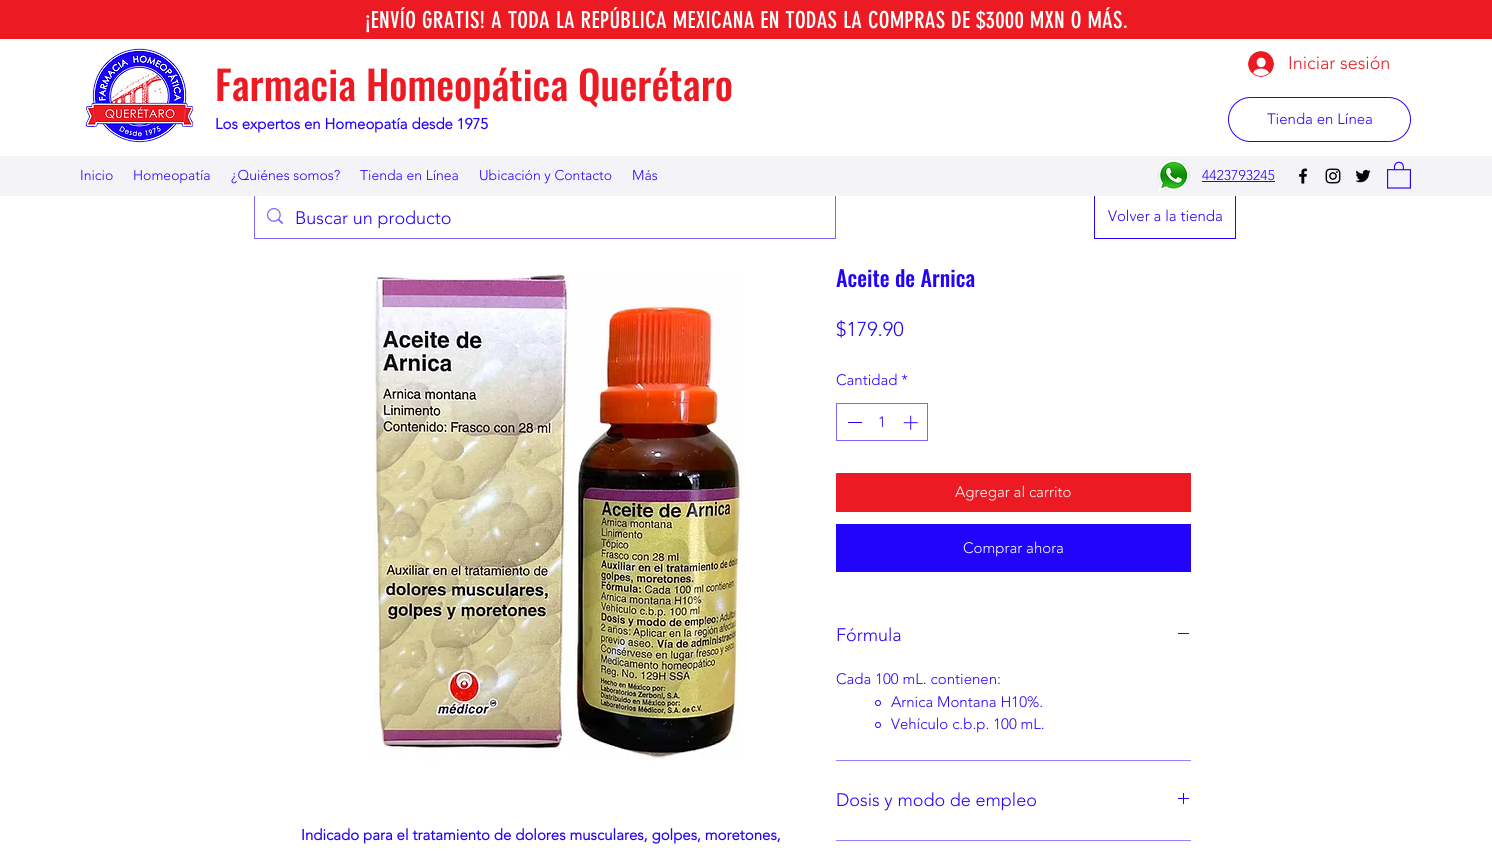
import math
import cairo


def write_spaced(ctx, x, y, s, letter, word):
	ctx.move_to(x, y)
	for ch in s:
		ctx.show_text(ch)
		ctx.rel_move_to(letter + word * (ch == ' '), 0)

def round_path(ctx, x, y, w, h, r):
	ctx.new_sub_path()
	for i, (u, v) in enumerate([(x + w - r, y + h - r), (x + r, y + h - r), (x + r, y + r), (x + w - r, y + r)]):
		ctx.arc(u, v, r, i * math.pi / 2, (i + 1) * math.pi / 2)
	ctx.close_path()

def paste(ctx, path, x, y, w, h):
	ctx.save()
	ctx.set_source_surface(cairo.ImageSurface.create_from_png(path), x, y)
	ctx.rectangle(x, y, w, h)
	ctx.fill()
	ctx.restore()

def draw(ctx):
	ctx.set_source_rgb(1, 1, 1)
	ctx.paint()
	ctx.set_source_rgb(0.922, 0.106, 0.137)
	ctx.rectangle(0, 0, 1492, 39)
	ctx.fill()
	ctx.select_font_face('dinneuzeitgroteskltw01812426')
	ctx.set_font_size(23)
	ctx.set_source_rgb(1, 1, 1)
	write_spaced(ctx, 365, 28, '¡ENVÍO GRATIS! A TODA LA REPÚBLICA MEXICANA EN TODAS LA COMPRAS DE $3000 MXN O MÁS.', 0.23, 0)
	paste(ctx, 'media/1.png', 85, 48, 109, 95)
	ctx.select_font_face('Oswald Medium')
	ctx.set_font_size(40)
	ctx.set_source_rgb(0.922, 0.106, 0.137)
	ctx.move_to(215, 101)
	ctx.show_text('Farmacia Homeopática Querétaro')
	ctx.select_font_face('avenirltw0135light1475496', cairo.FONT_SLANT_NORMAL, cairo.FONT_WEIGHT_BOLD)
	ctx.set_font_size(15)
	ctx.set_source_rgb(0.137, 0.016, 0.984)
	ctx.move_to(215, 129)
	ctx.show_text('Los expertos en Homeopatía desde 1975')
	paste(ctx, 'media/2.png', 1248, 51, 26, 26)
	ctx.select_font_face('avenirltw0135light1475496 Light')
	ctx.set_font_size(18)
	ctx.set_source_rgb(0.922, 0.106, 0.137)
	ctx.move_to(1288, 69)
	ctx.show_text('Iniciar sesión')
	round_path(ctx, 1228.5, 97.5, 182, 44, 22)
	ctx.set_source_rgb(0.137, 0.016, 0.984)
	ctx.set_line_width(1)
	ctx.stroke()
	ctx.set_font_size(15)
	ctx.move_to(1267, 124)
	ctx.show_text('Tienda en Línea')
	ctx.rectangle(254.5, 194.5, 581, 44)
	ctx.set_source_rgb(0.482, 0.408, 0.992)
	ctx.stroke()
	ctx.rectangle(1094.5, 194.5, 141, 44)
	ctx.set_source_rgb(0.137, 0.016, 0.984)
	ctx.stroke()
	ctx.set_source_rgb(0.957, 0.957, 0.969)
	ctx.rectangle(0, 156, 1492, 40)
	ctx.fill()
	ctx.set_font_size(14)
	ctx.set_source_rgb(0.137, 0.016, 0.984)
	for x, y, s in [
		(80, 180, 'Inicio'),
		(133, 180, 'Homeopatía'),
		(231, 180, '¿Quiénes somos?'),
		(360, 180, 'Tienda en Línea'),
		(479, 180, 'Ubicación y Contacto'),
		(632, 180, 'Más'),
	]:
		ctx.move_to(x, y)
		ctx.show_text(s)
	paste(ctx, 'media/3.png', 1157, 159, 33, 33)
	ctx.move_to(1202, 180)
	ctx.show_text('4423793245')
	ctx.rectangle(1202, 181, 73, 1)
	ctx.fill()
	paste(ctx, 'media/4.png', 1299, 168, 9, 16)
	paste(ctx, 'media/5.png', 1325, 168, 16, 16)
	paste(ctx, 'media/6.png', 1355, 169, 16, 14)
	paste(ctx, 'media/7.png', 1387, 161, 24, 28)
	paste(ctx, 'media/8.png', 267, 208, 16, 16)
	ctx.set_font_size(18)
	ctx.move_to(295, 224)
	ctx.show_text('Buscar un producto')
	ctx.set_font_size(15)
	ctx.move_to(1108, 221)
	ctx.show_text('Volver a la tienda')
	ctx.select_font_face('Oswald Medium')
	ctx.set_font_size(22)
	ctx.move_to(836, 287)
	ctx.show_text('Aceite de Arnica')
	ctx.select_font_face('avenirltw0135light1475496 Light')
	ctx.set_font_size(20)
	ctx.move_to(836, 336)
	ctx.show_text('$179.90')
	ctx.set_font_size(15)
	ctx.move_to(836, 385)
	ctx.show_text('Cantidad *')
	ctx.rectangle(836.5, 403.5, 91, 37)
	ctx.set_source_rgb(0.482, 0.408, 0.992)
	ctx.stroke()
	ctx.set_source_rgb(0.137, 0.016, 0.984)
	ctx.rectangle(848, 422, 14, 1)
	ctx.fill()
	ctx.move_to(878, 427)
	ctx.show_text('1')
	paste(ctx, 'media/9.png', 903, 415, 15, 15)
	ctx.set_source_rgb(0.922, 0.106, 0.137)
	ctx.rectangle(836, 473, 355, 39)
	ctx.fill()
	ctx.set_source_rgb(1, 1, 1)
	ctx.move_to(955, 497)
	ctx.show_text('Agregar al carrito')
	ctx.set_source_rgb(0.137, 0.016, 0.984)
	ctx.rectangle(836, 524, 355, 48)
	ctx.fill()
	ctx.set_source_rgb(1, 1, 1)
	ctx.move_to(963, 553)
	ctx.show_text('Comprar ahora')
	ctx.set_source_rgb(0.561, 0.498, 0.992)
	ctx.rectangle(836, 760, 355, 1)
	ctx.fill()
	ctx.set_font_size(18)
	ctx.set_source_rgb(0.137, 0.016, 0.984)
	ctx.move_to(836, 641)
	ctx.show_text('Fórmula')
	ctx.rectangle(1178, 633, 11, 1)
	ctx.fill()
	ctx.set_font_size(15)
	ctx.move_to(836, 684)
	ctx.show_text('Cada 100 mL. contienen:')
	ctx.new_path()
	ctx.arc(878, 703, 2.5, 0, 2 * math.pi)
	ctx.stroke()
	ctx.move_to(891, 707)
	ctx.show_text('Arnica Montana H10%.')
	ctx.new_path()
	ctx.arc(878, 725, 2.5, 0, 2 * math.pi)
	ctx.stroke()
	ctx.move_to(891, 729)
	ctx.show_text('Vehículo c.b.p. 100 mL.')
	ctx.set_source_rgb(0.561, 0.498, 0.992)
	ctx.rectangle(836, 840, 355, 1)
	ctx.fill()
	ctx.set_font_size(18)
	ctx.set_source_rgb(0.137, 0.016, 0.984)
	ctx.move_to(836, 806)
	ctx.show_text('Dosis y modo de empleo')
	paste(ctx, 'media/10.png', 1178, 793, 11, 11)
	paste(ctx, 'media/11.png', 374, 273, 368, 488)
	ctx.select_font_face('avenirltw0135light1475496', cairo.FONT_SLANT_NORMAL, cairo.FONT_WEIGHT_BOLD)
	ctx.set_font_size(15)
	ctx.move_to(301, 840)
	ctx.show_text('Indicado para el tratamiento de dolores musculares, golpes, moretones,')


surface = cairo.ImageSurface(cairo.FORMAT_RGB24, 1492, 860)
ctx = cairo.Context(surface)
options = cairo.FontOptions()
options.set_hint_metrics(cairo.HINT_METRICS_OFF)
options.set_hint_style(cairo.HINT_STYLE_NONE)
ctx.set_font_options(options)
ctx.set_miter_limit(4)
draw(ctx)
surface.write_to_png('image.png')
